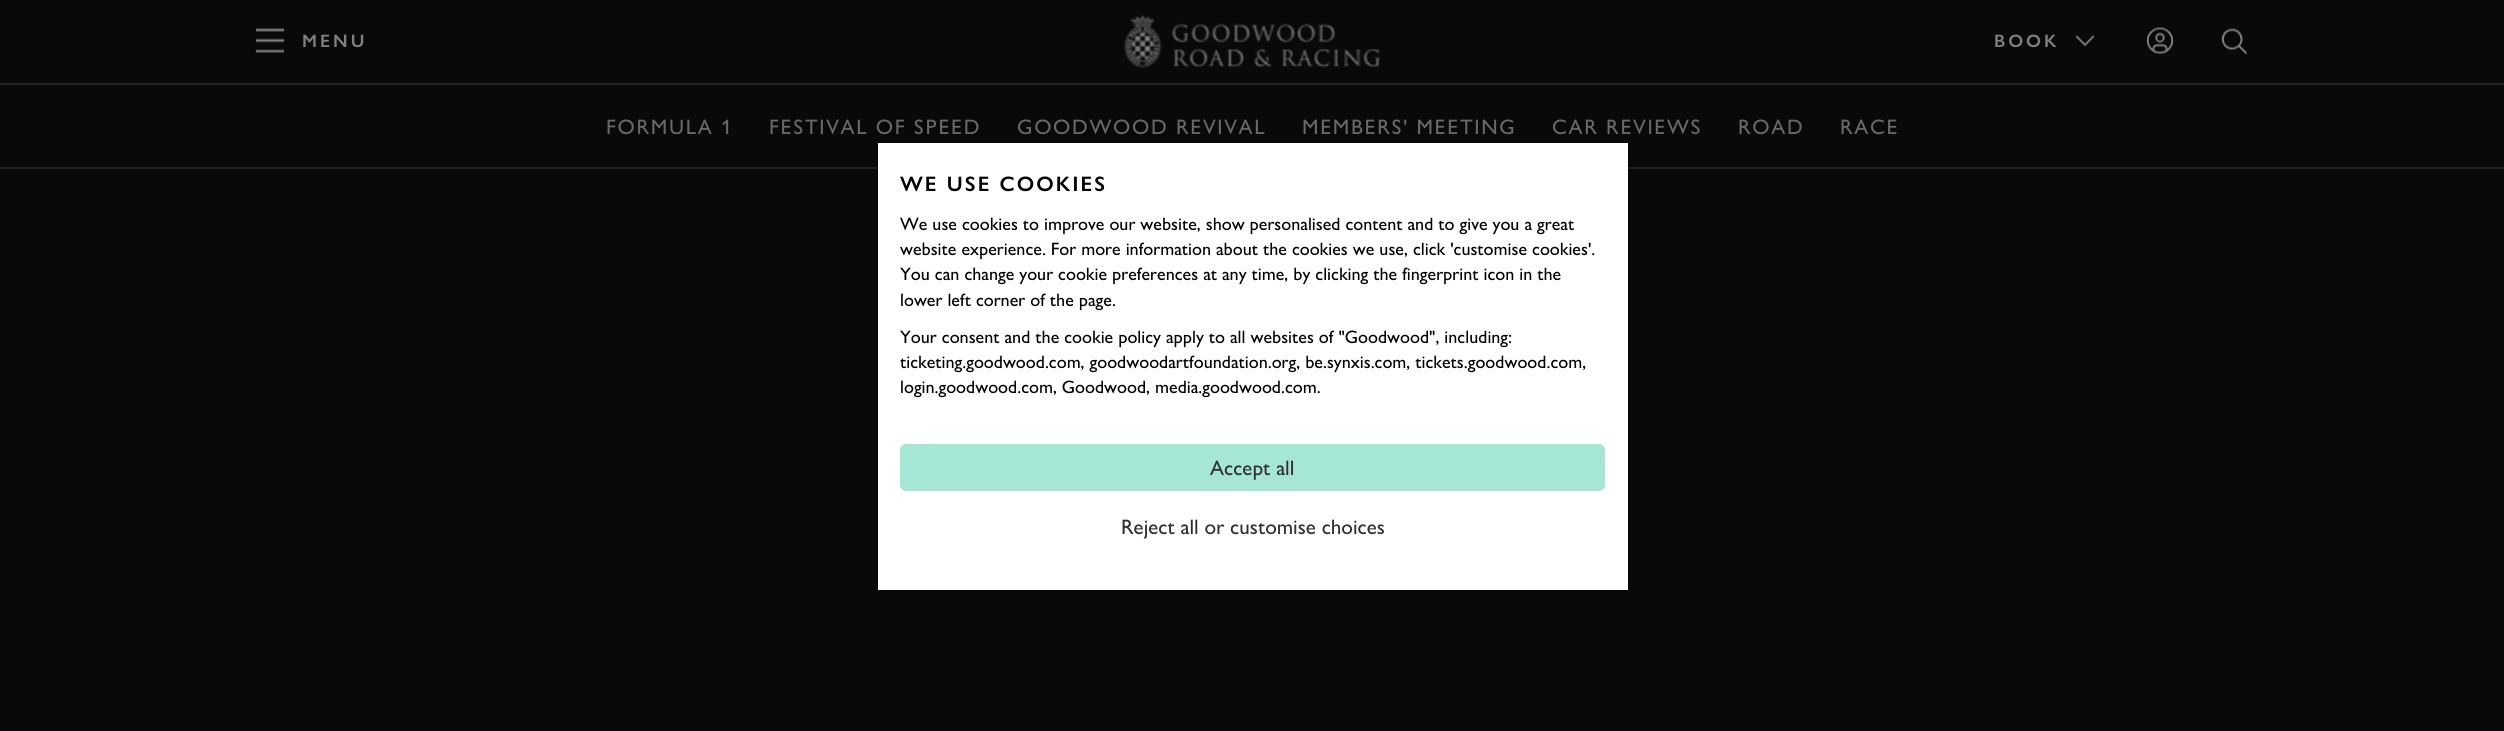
import math
import cairo


def write_spaced(ctx, x, y, s, letter, word):
	ctx.move_to(x, y)
	for ch in s:
		ctx.show_text(ch)
		ctx.rel_move_to(letter + word * (ch == ' '), 0)

def round_path(ctx, x, y, w, h, r):
	ctx.new_sub_path()
	for i, (u, v) in enumerate([(x + w - r, y + h - r), (x + r, y + h - r), (x + r, y + r), (x + w - r, y + r)]):
		ctx.arc(u, v, r, i * math.pi / 2, (i + 1) * math.pi / 2)
	ctx.close_path()

def paste(ctx, path, x, y, w, h):
	ctx.save()
	ctx.set_source_surface(cairo.ImageSurface.create_from_png(path), x, y)
	ctx.rectangle(x, y, w, h)
	ctx.fill()
	ctx.restore()

def draw(ctx):
	ctx.set_source_rgb(0.039, 0.039, 0.039)
	ctx.paint()
	ctx.set_source_rgb(0.129, 0.129, 0.129)
	ctx.rectangle(0, 83, 2504, 2)
	ctx.fill()
	paste(ctx, 'media/1.png', 255, 28, 30, 25)
	ctx.select_font_face('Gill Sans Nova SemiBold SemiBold')
	ctx.set_font_size(18)
	ctx.set_source_rgb(0.502, 0.502, 0.502)
	write_spaced(ctx, 302, 47, 'MENU', 3, 0)
	paste(ctx, 'media/2.png', 1123, 14, 258, 54)
	write_spaced(ctx, 1994, 47, 'BOOK', 3, 0)
	paste(ctx, 'media/3.png', 2075, 35, 20, 12)
	paste(ctx, 'media/4.png', 2146, 27, 28, 28)
	paste(ctx, 'media/5.png', 2221, 28, 26, 27)
	ctx.set_source_rgb(0.129, 0.129, 0.129)
	ctx.rectangle(0, 167, 2504, 2)
	ctx.fill()
	ctx.select_font_face('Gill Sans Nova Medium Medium')
	ctx.set_font_size(21)
	ctx.set_source_rgb(0.408, 0.408, 0.408)
	for x, y, s in [
		(606, 134, 'FORMULA 1'),
		(769, 134, 'FESTIVAL OF SPEED'),
		(1017, 134, 'GOODWOOD REVIVAL'),
		(1302, 134, 'MEMBERS\' MEETING'),
		(1552, 134, 'CAR REVIEWS'),
		(1738, 134, 'ROAD'),
		(1840, 134, 'RACE'),
	]:
		write_spaced(ctx, x, y, s, 1.7, 0)
	ctx.set_source_rgb(1, 1, 1)
	ctx.rectangle(878, 143, 750, 447)
	ctx.fill()
	ctx.select_font_face('Gill Sans Nova SemiBold SemiBold')
	ctx.set_source_rgb(0, 0, 0)
	write_spaced(ctx, 900, 191, 'WE USE COOKIES', 2.1, 0)
	ctx.select_font_face('Gill Sans Nova Medium Medium')
	ctx.set_font_size(18)
	for x, y, s in [
		(900, 230, 'We use cookies to improve our website, show personalised content and to give you a great'),
		(900, 255, 'website experience. For more information about the cookies we use, click \'customise cookies\'.'),
		(900, 280, 'You can change your cookie preferences at any time, by clicking the fingerprint icon in the'),
		(900, 306, 'lower left corner of the page.'),
		(900, 343, 'Your consent and the cookie policy apply to all websites of "Goodwood", including:'),
		(900, 368, 'ticketing.goodwood.com, goodwoodartfoundation.org, be.synxis.com, tickets.goodwood.com,'),
		(900, 393, 'login.goodwood.com, Goodwood, media.goodwood.com.'),
	]:
		ctx.move_to(x, y)
		ctx.show_text(s)
	ctx.set_source_rgb(0.647, 0.906, 0.831)
	round_path(ctx, 901, 445, 703, 45, 5)
	ctx.fill_preserve()
	ctx.stroke()
	ctx.set_font_size(21)
	ctx.set_source_rgb(0.188, 0.188, 0.188)
	ctx.move_to(1210, 475)
	ctx.show_text('Accept all')
	ctx.move_to(1121, 534)
	ctx.show_text('Reject all or customise choices')


surface = cairo.ImageSurface(cairo.FORMAT_RGB24, 2504, 731)
ctx = cairo.Context(surface)
options = cairo.FontOptions()
options.set_hint_metrics(cairo.HINT_METRICS_OFF)
options.set_hint_style(cairo.HINT_STYLE_NONE)
ctx.set_font_options(options)
ctx.set_miter_limit(4)
draw(ctx)
surface.write_to_png('image.png')
